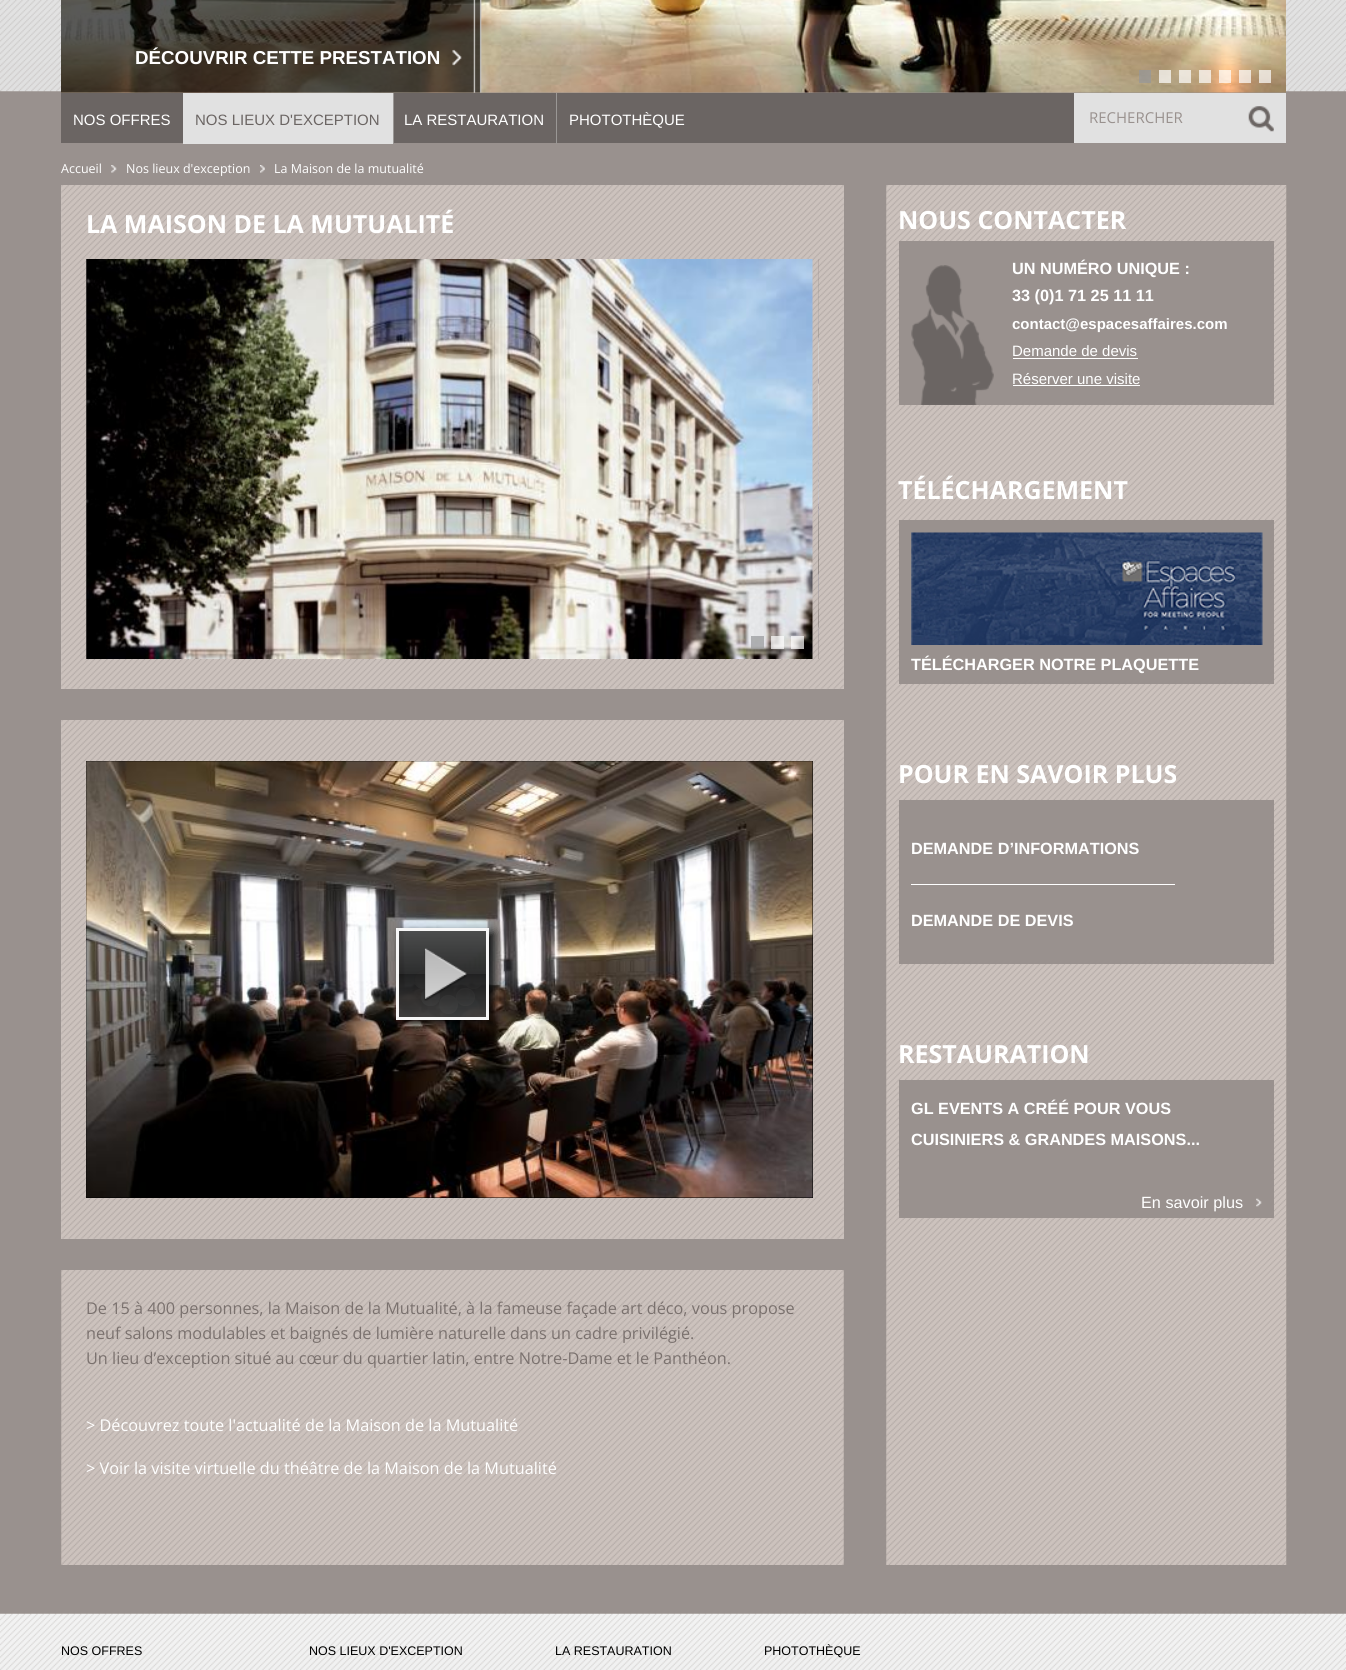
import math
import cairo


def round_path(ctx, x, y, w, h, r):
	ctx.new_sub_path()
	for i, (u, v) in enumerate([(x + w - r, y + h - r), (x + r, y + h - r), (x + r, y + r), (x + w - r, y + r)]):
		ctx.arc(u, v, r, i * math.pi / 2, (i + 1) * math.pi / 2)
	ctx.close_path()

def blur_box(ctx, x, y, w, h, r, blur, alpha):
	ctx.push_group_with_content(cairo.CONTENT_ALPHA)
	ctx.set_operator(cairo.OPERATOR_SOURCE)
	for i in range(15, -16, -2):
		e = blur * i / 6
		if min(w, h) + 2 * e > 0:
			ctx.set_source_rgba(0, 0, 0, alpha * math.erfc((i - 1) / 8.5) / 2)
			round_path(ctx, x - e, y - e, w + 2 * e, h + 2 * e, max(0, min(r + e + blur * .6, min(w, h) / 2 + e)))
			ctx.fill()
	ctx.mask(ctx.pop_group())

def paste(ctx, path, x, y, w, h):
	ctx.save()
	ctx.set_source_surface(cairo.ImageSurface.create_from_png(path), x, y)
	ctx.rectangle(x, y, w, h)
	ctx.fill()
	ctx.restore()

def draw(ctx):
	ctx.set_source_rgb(0.6, 0.569, 0.557)
	ctx.paint()
	paste(ctx, 'media/1.png', 0, 0, 1346, 92)
	paste(ctx, 'media/2.png', 61, 0, 1225, 93)
	paste(ctx, 'media/3.png', 61, 0, 421, 93)
	paste(ctx, 'media/4.png', 452, 49, 10, 17)
	ctx.select_font_face('Liberation Sans', cairo.FONT_SLANT_NORMAL, cairo.FONT_WEIGHT_BOLD)
	ctx.set_font_size(18.75)
	ctx.set_source_rgb(1, 1, 1)
	ctx.move_to(135, 64)
	ctx.show_text('DÉCOUVRIR CETTE PRESTATION')
	ctx.set_source_rgba(0.588, 0.596, 0.608, 0.7)
	ctx.rectangle(1139, 70, 12, 13)
	ctx.fill()
	ctx.set_source_rgba(1, 1, 1, 0.7)
	ctx.rectangle(1159, 70, 12, 13)
	ctx.fill()
	ctx.rectangle(1179, 70, 12, 13)
	ctx.fill()
	ctx.rectangle(1199, 70, 12, 13)
	ctx.fill()
	ctx.rectangle(1219, 70, 12, 13)
	ctx.fill()
	ctx.rectangle(1239, 70, 12, 13)
	ctx.fill()
	ctx.rectangle(1259, 70, 12, 13)
	ctx.fill()
	ctx.set_source_rgb(0.42, 0.396, 0.388)
	ctx.rectangle(61, 93, 1013, 50)
	ctx.fill()
	ctx.select_font_face('Liberation Sans')
	ctx.set_font_size(15)
	ctx.set_source_rgb(1, 1, 1)
	ctx.move_to(73, 125)
	ctx.show_text('NOS OFFRES')
	ctx.set_source_rgb(0.882, 0.882, 0.882)
	ctx.rectangle(183, 93, 210, 51)
	ctx.fill()
	ctx.set_source_rgb(0.604, 0.592, 0.584)
	ctx.rectangle(393, 93, 1, 51)
	ctx.fill()
	ctx.set_source_rgb(0.42, 0.396, 0.388)
	ctx.move_to(195, 125)
	ctx.show_text('NOS LIEUX D\'EXCEPTION')
	ctx.set_source_rgb(0.604, 0.592, 0.584)
	ctx.rectangle(556, 93, 1, 51)
	ctx.fill()
	ctx.set_source_rgb(1, 1, 1)
	ctx.move_to(404, 125)
	ctx.show_text('LA RESTAURATION')
	ctx.move_to(569, 125)
	ctx.show_text('PHOTOTHÈQUE')
	ctx.set_source_rgb(0.882, 0.882, 0.882)
	ctx.rectangle(1074, 93, 212, 50)
	ctx.fill()
	ctx.select_font_face('Open Sans')
	ctx.set_source_rgb(0.6, 0.569, 0.557)
	ctx.move_to(1089, 123)
	ctx.show_text('RECHERCHER')
	paste(ctx, 'media/5.png', 1248, 106, 26, 26)
	ctx.set_font_size(12.5)
	ctx.set_source_rgb(1, 1, 1)
	ctx.move_to(61, 173)
	ctx.show_text('Accueil')
	paste(ctx, 'media/6.png', 111, 165, 6, 8)
	ctx.move_to(126, 173)
	ctx.show_text('Nos lieux d\'exception')
	paste(ctx, 'media/7.png', 260, 165, 5, 8)
	ctx.move_to(274, 173)
	ctx.show_text('La Maison de la mutualité')
	ctx.set_source_rgb(0.8, 0.765, 0.745)
	ctx.rectangle(61, 185, 783, 504)
	ctx.fill()
	paste(ctx, 'media/8.png', 61, 185, 783, 504)
	ctx.select_font_face('Open Sans', cairo.FONT_SLANT_NORMAL, cairo.FONT_WEIGHT_BOLD)
	ctx.set_font_size(25)
	ctx.set_source_rgb(1, 1, 1)
	ctx.move_to(86, 233)
	ctx.show_text('LA MAISON DE LA MUTUALITÉ')
	paste(ctx, 'media/9.png', 86, 259, 727, 400)
	paste(ctx, 'media/10.png', 818, 259, 1, 400)
	ctx.set_source_rgba(0.588, 0.596, 0.608, 0.7)
	ctx.rectangle(751, 636, 13, 13)
	ctx.fill()
	ctx.set_source_rgba(1, 1, 1, 0.7)
	ctx.rectangle(771, 636, 13, 13)
	ctx.fill()
	ctx.rectangle(791, 636, 13, 13)
	ctx.fill()
	ctx.set_source_rgb(0.8, 0.765, 0.745)
	ctx.rectangle(61, 720, 783, 519)
	ctx.fill()
	paste(ctx, 'media/11.png', 61, 720, 783, 519)
	ctx.set_source_rgb(0, 0, 0)
	ctx.rectangle(86, 761, 727, 437)
	ctx.fill()
	paste(ctx, 'media/12.png', 86, 761, 727, 437)
	ctx.set_source_rgba(1, 1, 1, 0.12)
	ctx.arc(448.5, 954.5, 9.5, 0, 2 * math.pi)
	ctx.fill()
	ctx.arc(448.5, 954.5, 9, 0, 2 * math.pi)
	ctx.set_source_rgba(0.8, 0.8, 0.8, 0.12)
	ctx.set_line_width(1)
	ctx.stroke()
	ctx.set_source_rgba(1, 1, 1, 0.25)
	round_path(ctx, 456, 953, 19, 18, 9)
	ctx.fill()
	round_path(ctx, 456.5, 953.5, 18, 17, 8.5)
	ctx.set_source_rgba(0.8, 0.8, 0.8, 0.25)
	ctx.stroke()
	ctx.set_source_rgba(1, 1, 1, 0.37)
	ctx.arc(473.5, 979.5, 9.5, 0, 2 * math.pi)
	ctx.fill()
	ctx.arc(473.5, 979.5, 9, 0, 2 * math.pi)
	ctx.set_source_rgba(0.8, 0.8, 0.8, 0.37)
	ctx.stroke()
	ctx.set_source_rgba(1, 1, 1, 0.5)
	round_path(ctx, 456, 988, 19, 18, 9)
	ctx.fill()
	round_path(ctx, 456.5, 988.5, 18, 17, 8.5)
	ctx.set_source_rgba(0.8, 0.8, 0.8, 0.5)
	ctx.stroke()
	ctx.set_source_rgba(1, 1, 1, 0.62)
	ctx.arc(448.5, 1004.5, 9.5, 0, 2 * math.pi)
	ctx.fill()
	ctx.arc(448.5, 1004.5, 9, 0, 2 * math.pi)
	ctx.set_source_rgba(0.8, 0.8, 0.8, 0.62)
	ctx.stroke()
	ctx.set_source_rgba(1, 1, 1, 0.75)
	round_path(ctx, 421, 988, 19, 18, 9)
	ctx.fill()
	round_path(ctx, 421.5, 988.5, 18, 17, 8.5)
	ctx.set_source_rgba(0.8, 0.8, 0.8, 0.75)
	ctx.stroke()
	ctx.set_source_rgba(1, 1, 1, 0.87)
	ctx.arc(423.5, 979.5, 9.5, 0, 2 * math.pi)
	ctx.fill()
	ctx.arc(423.5, 979.5, 9, 0, 2 * math.pi)
	ctx.set_source_rgba(0.8, 0.8, 0.8, 0.87)
	ctx.stroke()
	ctx.set_source_rgb(1, 1, 1)
	round_path(ctx, 421.5, 953.5, 18, 17, 8.5)
	ctx.fill_preserve()
	ctx.set_source_rgb(0.8, 0.8, 0.8)
	ctx.stroke()
	ctx.save()
	ctx.set_fill_rule(cairo.FILL_RULE_EVEN_ODD)
	ctx.new_path()
	ctx.move_to(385, 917)
	ctx.line_to(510, 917)
	ctx.line_to(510, 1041)
	ctx.line_to(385, 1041)
	ctx.close_path()
	ctx.move_to(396, 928)
	ctx.line_to(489, 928)
	ctx.line_to(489, 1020)
	ctx.line_to(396, 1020)
	ctx.close_path()
	ctx.clip()
	ctx.set_source_rgb(0, 0, 0)
	blur_box(ctx, 401, 933, 93, 92, 0, 5, 0.95)
	ctx.restore()
	gradient = cairo.LinearGradient(443, 843, 443, 930)
	gradient.add_color_stop_rgba(0, 0.271, 0.271, 0.271, 0.95)
	gradient.add_color_stop_rgba(0.5, 0.137, 0.137, 0.137, 0.95)
	gradient.add_color_stop_rgba(0.5, 0.086, 0.086, 0.086, 0.95)
	gradient.add_color_stop_rgba(1, 0.247, 0.247, 0.247, 0.95)
	ctx.set_source(gradient)
	ctx.rectangle(396, 928, 93, 2)
	ctx.fill()
	gradient = cairo.LinearGradient(443, 930, 443, 1018)
	gradient.add_color_stop_rgba(0, 0.271, 0.271, 0.271, 0.95)
	gradient.add_color_stop_rgba(0.5, 0.137, 0.137, 0.137, 0.95)
	gradient.add_color_stop_rgba(0.5, 0.086, 0.086, 0.086, 0.95)
	gradient.add_color_stop_rgba(1, 0.247, 0.247, 0.247, 0.95)
	ctx.set_source(gradient)
	ctx.rectangle(396, 930, 93, 88)
	ctx.fill()
	gradient = cairo.LinearGradient(443, 1018, 443, 1105)
	gradient.add_color_stop_rgba(0, 0.271, 0.271, 0.271, 0.95)
	gradient.add_color_stop_rgba(0.5, 0.137, 0.137, 0.137, 0.95)
	gradient.add_color_stop_rgba(0.5, 0.086, 0.086, 0.086, 0.95)
	gradient.add_color_stop_rgba(1, 0.247, 0.247, 0.247, 0.95)
	ctx.set_source(gradient)
	ctx.rectangle(396, 1018, 93, 2)
	ctx.fill()
	ctx.rectangle(397.5, 929.5, 90, 89)
	ctx.set_source_rgba(1, 1, 1, 0.95)
	ctx.set_line_width(3)
	ctx.stroke()
	paste(ctx, 'media/13.png', 424, 948, 43, 53)
	paste(ctx, 'media/14.png', 61, 1270, 783, 295)
	ctx.select_font_face('Open Sans')
	ctx.set_font_size(16.25)
	ctx.set_source_rgb(0.478, 0.443, 0.431)
	for x, y, s in [
		(86, 1314, 'De 15 à 400 personnes, la Maison de la Mutualité, à la fameuse façade art déco, vous propose'),
		(86, 1339, 'neuf salons modulables et baignés de lumière naturelle dans un cadre privilégié.'),
		(86, 1364, 'Un lieu d’exception situé au cœur du quartier latin, entre Notre-Dame et le Panthéon.'),
	]:
		ctx.move_to(x, y)
		ctx.show_text(s)
	ctx.set_source_rgb(1, 1, 1)
	ctx.move_to(86, 1431)
	ctx.show_text('> Découvrez toute l\'actualité de la Maison de la Mutualité')
	ctx.move_to(86, 1474)
	ctx.show_text('> Voir la visite virtuelle du théâtre de la Maison de la Mutualité')
	paste(ctx, 'media/15.png', 886, 185, 401, 1380)
	ctx.select_font_face('Open Sans', cairo.FONT_SLANT_NORMAL, cairo.FONT_WEIGHT_BOLD)
	ctx.set_font_size(25)
	ctx.move_to(898, 229)
	ctx.show_text('NOUS CONTACTER')
	ctx.set_source_rgb(0.6, 0.569, 0.557)
	ctx.rectangle(899, 241, 375, 164)
	ctx.fill()
	paste(ctx, 'media/16.png', 911, 265, 83, 140)
	ctx.select_font_face('Liberation Sans', cairo.FONT_SLANT_NORMAL, cairo.FONT_WEIGHT_BOLD)
	ctx.set_font_size(16.25)
	ctx.set_source_rgb(1, 1, 1)
	ctx.move_to(1012, 274)
	ctx.show_text('UN NUMÉRO UNIQUE :')
	ctx.move_to(1012, 301)
	ctx.show_text('33 (0)1 71 25 11 11')
	ctx.set_font_size(15)
	ctx.move_to(1012, 329)
	ctx.show_text('contact@espacesaffaires.com')
	ctx.select_font_face('Liberation Sans')
	ctx.move_to(1012, 356)
	ctx.show_text('Demande de devis')
	ctx.rectangle(1013, 358, 125, 1)
	ctx.fill()
	ctx.move_to(1012, 384)
	ctx.show_text('Réserver une visite')
	ctx.rectangle(1013, 385, 127, 1)
	ctx.fill()
	ctx.select_font_face('Open Sans', cairo.FONT_SLANT_NORMAL, cairo.FONT_WEIGHT_BOLD)
	ctx.set_font_size(25)
	ctx.move_to(898, 499)
	ctx.show_text('TÉLÉCHARGEMENT')
	ctx.set_source_rgb(0.6, 0.569, 0.557)
	ctx.rectangle(899, 520, 375, 164)
	ctx.fill()
	paste(ctx, 'media/17.png', 911, 532, 352, 113)
	ctx.select_font_face('Liberation Sans', cairo.FONT_SLANT_NORMAL, cairo.FONT_WEIGHT_BOLD)
	ctx.set_font_size(16.25)
	ctx.set_source_rgb(1, 1, 1)
	ctx.move_to(911, 670)
	ctx.show_text('TÉLÉCHARGER NOTRE PLAQUETTE')
	ctx.select_font_face('Open Sans', cairo.FONT_SLANT_NORMAL, cairo.FONT_WEIGHT_BOLD)
	ctx.set_font_size(25)
	ctx.move_to(898, 783)
	ctx.show_text('POUR EN SAVOIR PLUS')
	ctx.set_source_rgb(0.6, 0.569, 0.557)
	ctx.rectangle(899, 800, 375, 164)
	ctx.fill()
	ctx.set_source_rgb(1, 1, 1)
	ctx.rectangle(911, 884, 264, 1)
	ctx.fill()
	ctx.select_font_face('Liberation Sans', cairo.FONT_SLANT_NORMAL, cairo.FONT_WEIGHT_BOLD)
	ctx.set_font_size(16.25)
	ctx.move_to(911, 854)
	ctx.show_text('DEMANDE D’INFORMATIONS')
	ctx.move_to(911, 926)
	ctx.show_text('DEMANDE DE DEVIS')
	ctx.select_font_face('Open Sans', cairo.FONT_SLANT_NORMAL, cairo.FONT_WEIGHT_BOLD)
	ctx.set_font_size(25)
	ctx.move_to(898, 1063)
	ctx.show_text('RESTAURATION')
	ctx.set_source_rgb(0.6, 0.569, 0.557)
	ctx.rectangle(899, 1080, 375, 138)
	ctx.fill()
	ctx.select_font_face('Liberation Sans', cairo.FONT_SLANT_NORMAL, cairo.FONT_WEIGHT_BOLD)
	ctx.set_font_size(16.25)
	ctx.set_source_rgb(1, 1, 1)
	ctx.move_to(911, 1114)
	ctx.show_text('GL EVENTS A CRÉÉ POUR VOUS')
	ctx.move_to(911, 1145)
	ctx.show_text('CUISINIERS & GRANDES MAISONS...')
	paste(ctx, 'media/18.png', 1256, 1198, 6, 9)
	ctx.select_font_face('Liberation Sans')
	ctx.move_to(1141, 1208)
	ctx.show_text('En savoir plus')
	paste(ctx, 'media/19.png', 0, 1613, 1346, 57)
	ctx.set_font_size(12.5)
	ctx.set_source_rgb(0, 0, 0)
	for x, y, s in [
		(61, 1655, 'NOS OFFRES'),
		(309, 1655, 'NOS LIEUX D\'EXCEPTION'),
		(555, 1655, 'LA RESTAURATION'),
		(764, 1655, 'PHOTOTHÈQUE'),
	]:
		ctx.move_to(x, y)
		ctx.show_text(s)


surface = cairo.ImageSurface(cairo.FORMAT_RGB24, 1346, 1670)
ctx = cairo.Context(surface)
options = cairo.FontOptions()
options.set_hint_metrics(cairo.HINT_METRICS_OFF)
options.set_hint_style(cairo.HINT_STYLE_NONE)
ctx.set_font_options(options)
ctx.set_miter_limit(4)
draw(ctx)
surface.write_to_png('image.png')
